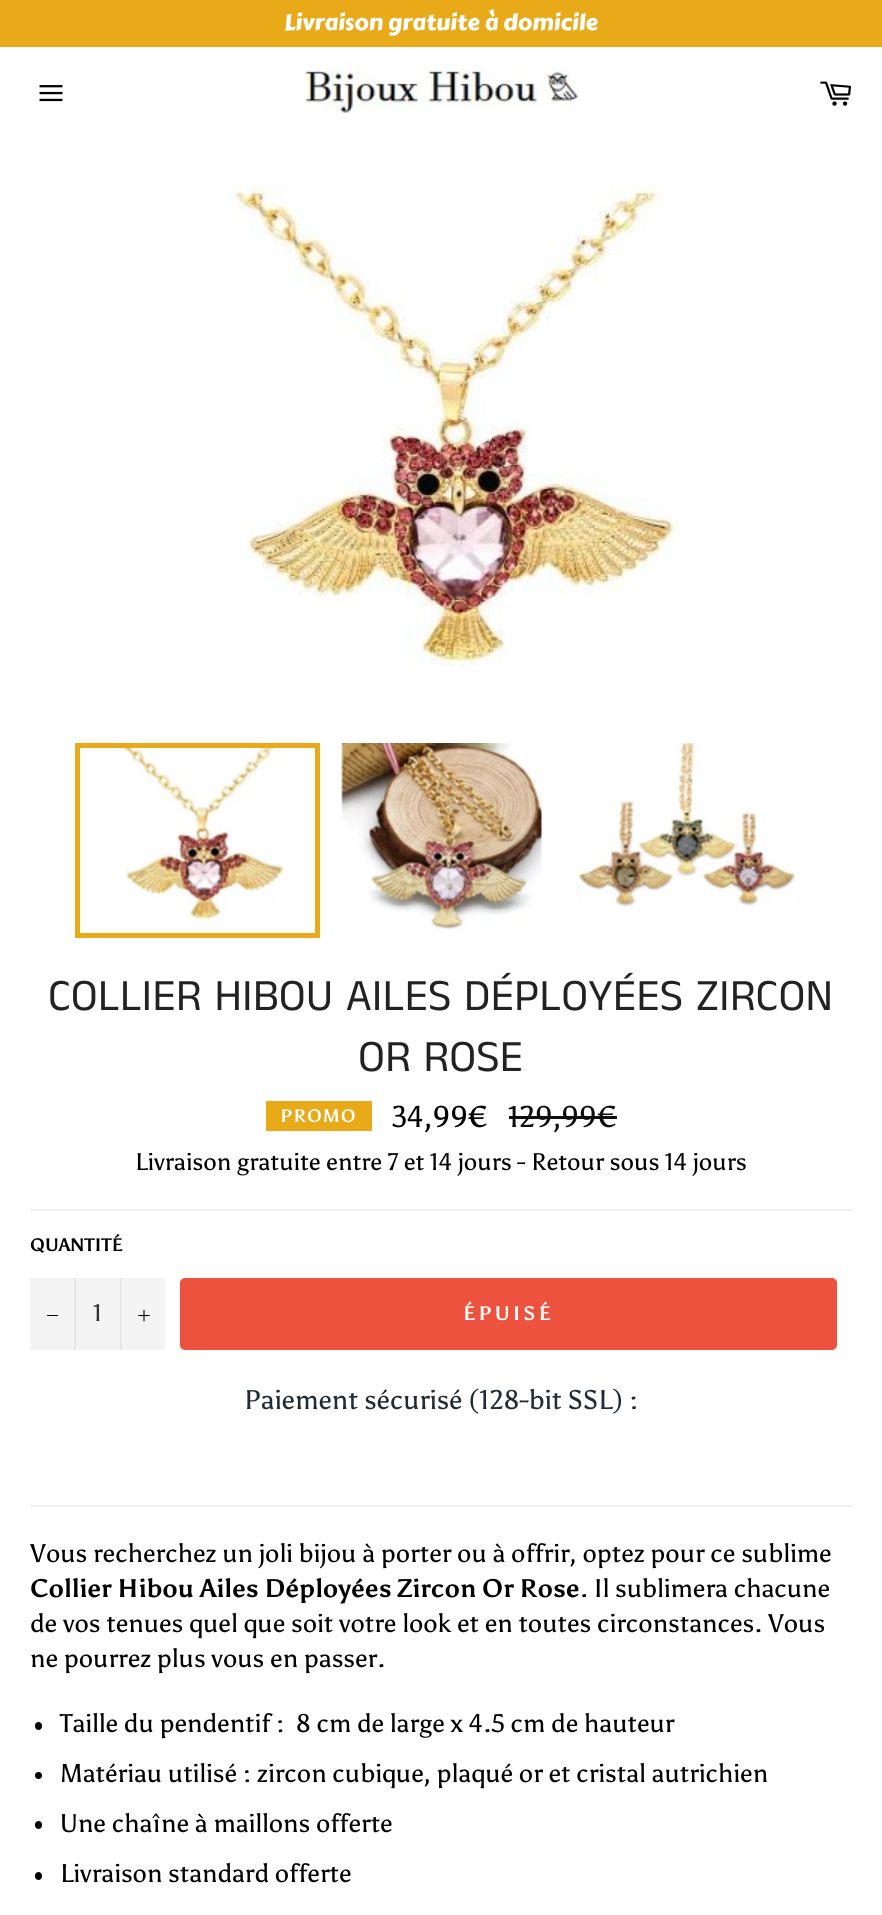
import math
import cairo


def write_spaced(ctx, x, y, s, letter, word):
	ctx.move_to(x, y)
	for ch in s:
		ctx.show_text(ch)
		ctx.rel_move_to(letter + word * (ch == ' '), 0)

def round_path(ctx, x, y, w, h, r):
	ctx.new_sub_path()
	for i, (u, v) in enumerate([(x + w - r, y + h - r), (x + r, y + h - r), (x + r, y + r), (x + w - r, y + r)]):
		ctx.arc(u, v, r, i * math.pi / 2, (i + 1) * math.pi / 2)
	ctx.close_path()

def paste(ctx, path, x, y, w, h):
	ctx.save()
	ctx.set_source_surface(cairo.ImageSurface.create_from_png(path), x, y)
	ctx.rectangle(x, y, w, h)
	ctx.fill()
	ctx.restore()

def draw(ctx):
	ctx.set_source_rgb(1, 1, 1)
	ctx.paint()
	ctx.set_source_rgb(0.91, 0.667, 0.098)
	ctx.rectangle(0, 0, 882, 47)
	ctx.fill()
	ctx.select_font_face('Carter One')
	ctx.set_font_size(22.5)
	ctx.set_source_rgb(1, 1, 1)
	ctx.move_to(284, 30)
	ctx.show_text('Livraison gratuite à domicile')
	paste(ctx, 'media/1.png', 39, 85, 24, 17)
	paste(ctx, 'media/2.png', 303, 60, 276, 58)
	paste(ctx, 'media/3.png', 820, 81, 31, 25)
	paste(ctx, 'media/4.png', 227, 186, 456, 480)
	paste(ctx, 'media/5.png', 119, 748, 170, 176)
	ctx.rectangle(77.5, 745.5, 240, 190)
	ctx.set_source_rgb(0.91, 0.667, 0.098)
	ctx.set_line_width(5)
	ctx.stroke()
	paste(ctx, 'media/6.png', 341, 743, 201, 188)
	paste(ctx, 'media/7.png', 575, 743, 227, 164)
	ctx.select_font_face('Anek Tamil')
	ctx.set_font_size(45)
	ctx.set_source_rgb(0.133, 0.133, 0.133)
	ctx.move_to(48, 1010)
	ctx.show_text('COLLIER HIBOU AILES DÉPLOYÉES ZIRCON')
	ctx.move_to(358, 1071)
	ctx.show_text('OR ROSE')
	ctx.set_source_rgb(0.91, 0.667, 0.098)
	ctx.rectangle(266, 1101, 106, 30)
	ctx.fill()
	ctx.select_font_face('Asul', cairo.FONT_SLANT_NORMAL, cairo.FONT_WEIGHT_BOLD)
	ctx.set_font_size(18)
	ctx.set_source_rgb(1, 1, 1)
	write_spaced(ctx, 280, 1122, 'PROMO', 1, 0)
	ctx.select_font_face('Asul')
	ctx.set_font_size(30)
	ctx.set_source_rgb(0, 0, 0)
	ctx.move_to(392, 1127)
	ctx.show_text('34,99€')
	ctx.set_source_rgb(0.051, 0.051, 0.051)
	ctx.move_to(508, 1127)
	ctx.show_text('129,99€')
	ctx.rectangle(509, 1116, 108, 3)
	ctx.fill()
	ctx.set_font_size(24)
	ctx.set_source_rgb(0, 0, 0)
	ctx.move_to(135, 1170)
	ctx.show_text('Livraison gratuite entre 7 et 14 jours - Retour sous 14 jours')
	ctx.set_source_rgb(0.941, 0.941, 0.941)
	ctx.rectangle(30, 1209, 822, 2)
	ctx.fill()
	ctx.select_font_face('Asul', cairo.FONT_SLANT_NORMAL, cairo.FONT_WEIGHT_BOLD)
	ctx.set_font_size(18)
	ctx.set_source_rgb(0, 0, 0)
	ctx.move_to(30, 1251)
	ctx.show_text('QUANTITÉ')
	ctx.set_source_rgb(0.957, 0.957, 0.957)
	ctx.rectangle(30, 1278, 135, 72)
	ctx.fill()
	ctx.set_source_rgb(0.906, 0.906, 0.906)
	ctx.rectangle(74, 1278, 2, 72)
	ctx.fill()
	ctx.set_source_rgb(0, 0, 0)
	ctx.rectangle(47, 1315, 11, 1)
	ctx.fill()
	ctx.select_font_face('Asul')
	ctx.set_font_size(24)
	ctx.set_source_rgb(0.2, 0.2, 0.2)
	ctx.move_to(93, 1321)
	ctx.show_text('1')
	ctx.set_source_rgb(0.906, 0.906, 0.906)
	ctx.rectangle(120, 1278, 2, 72)
	ctx.fill()
	paste(ctx, 'media/8.png', 138, 1310, 12, 12)
	ctx.set_source_rgb(0.925, 0.322, 0.243)
	round_path(ctx, 180, 1278, 657, 72, 5)
	ctx.fill()
	ctx.select_font_face('Asul', cairo.FONT_SLANT_NORMAL, cairo.FONT_WEIGHT_BOLD)
	ctx.set_font_size(19.5)
	ctx.set_source_rgb(1, 1, 1)
	write_spaced(ctx, 463, 1320, 'ÉPUISÉ', 3, 0)
	ctx.select_font_face('Asul')
	ctx.set_font_size(27)
	ctx.set_source_rgb(0.129, 0.169, 0.208)
	ctx.move_to(244, 1409)
	ctx.show_text('Paiement sécurisé (128-bit SSL) :')
	ctx.set_source_rgb(0.941, 0.941, 0.941)
	ctx.rectangle(30, 1505, 822, 2)
	ctx.fill()
	ctx.set_font_size(25.5)
	ctx.set_source_rgb(0, 0, 0)
	ctx.move_to(30, 1562)
	ctx.show_text('Vous recherchez un joli bijou à porter ou à offrir, optez pour ce sublime')
	ctx.select_font_face('Asul', cairo.FONT_SLANT_NORMAL, cairo.FONT_WEIGHT_BOLD)
	ctx.move_to(30, 1597)
	ctx.show_text('Collier Hibou Ailes Déployées Zircon Or Rose')
	ctx.select_font_face('Asul')
	for x, y, s in [
		(580, 1597, '. Il sublimera chacune'),
		(30, 1632, 'de vos tenues quel que soit votre look et en toutes circonstances. Vous'),
		(30, 1667, 'ne pourrez plus vous en passer.'),
	]:
		ctx.move_to(x, y)
		ctx.show_text(s)
	round_path(ctx, 35, 1722, 7, 8, 3.5)
	ctx.fill()
	ctx.move_to(60, 1732)
	ctx.show_text('Taille du pendentif :  8 cm de large x 4.5 cm de hauteur')
	ctx.new_path()
	ctx.arc(38.5, 1775.5, 3.5, 0, 2 * math.pi)
	ctx.fill()
	ctx.move_to(60, 1782)
	ctx.show_text('Matériau utilisé : zircon cubique, plaqué or et cristal autrichien')
	round_path(ctx, 35, 1821, 7, 8, 3.5)
	ctx.fill()
	ctx.move_to(60, 1832)
	ctx.show_text('Une chaîne à maillons offerte')
	round_path(ctx, 35, 1872, 7, 8, 3.5)
	ctx.fill()
	ctx.move_to(60, 1882)
	ctx.show_text('Livraison standard offerte')


surface = cairo.ImageSurface(cairo.FORMAT_RGB24, 882, 1915)
ctx = cairo.Context(surface)
options = cairo.FontOptions()
options.set_hint_metrics(cairo.HINT_METRICS_OFF)
options.set_hint_style(cairo.HINT_STYLE_NONE)
ctx.set_font_options(options)
ctx.set_miter_limit(4)
draw(ctx)
surface.write_to_png('image.png')
